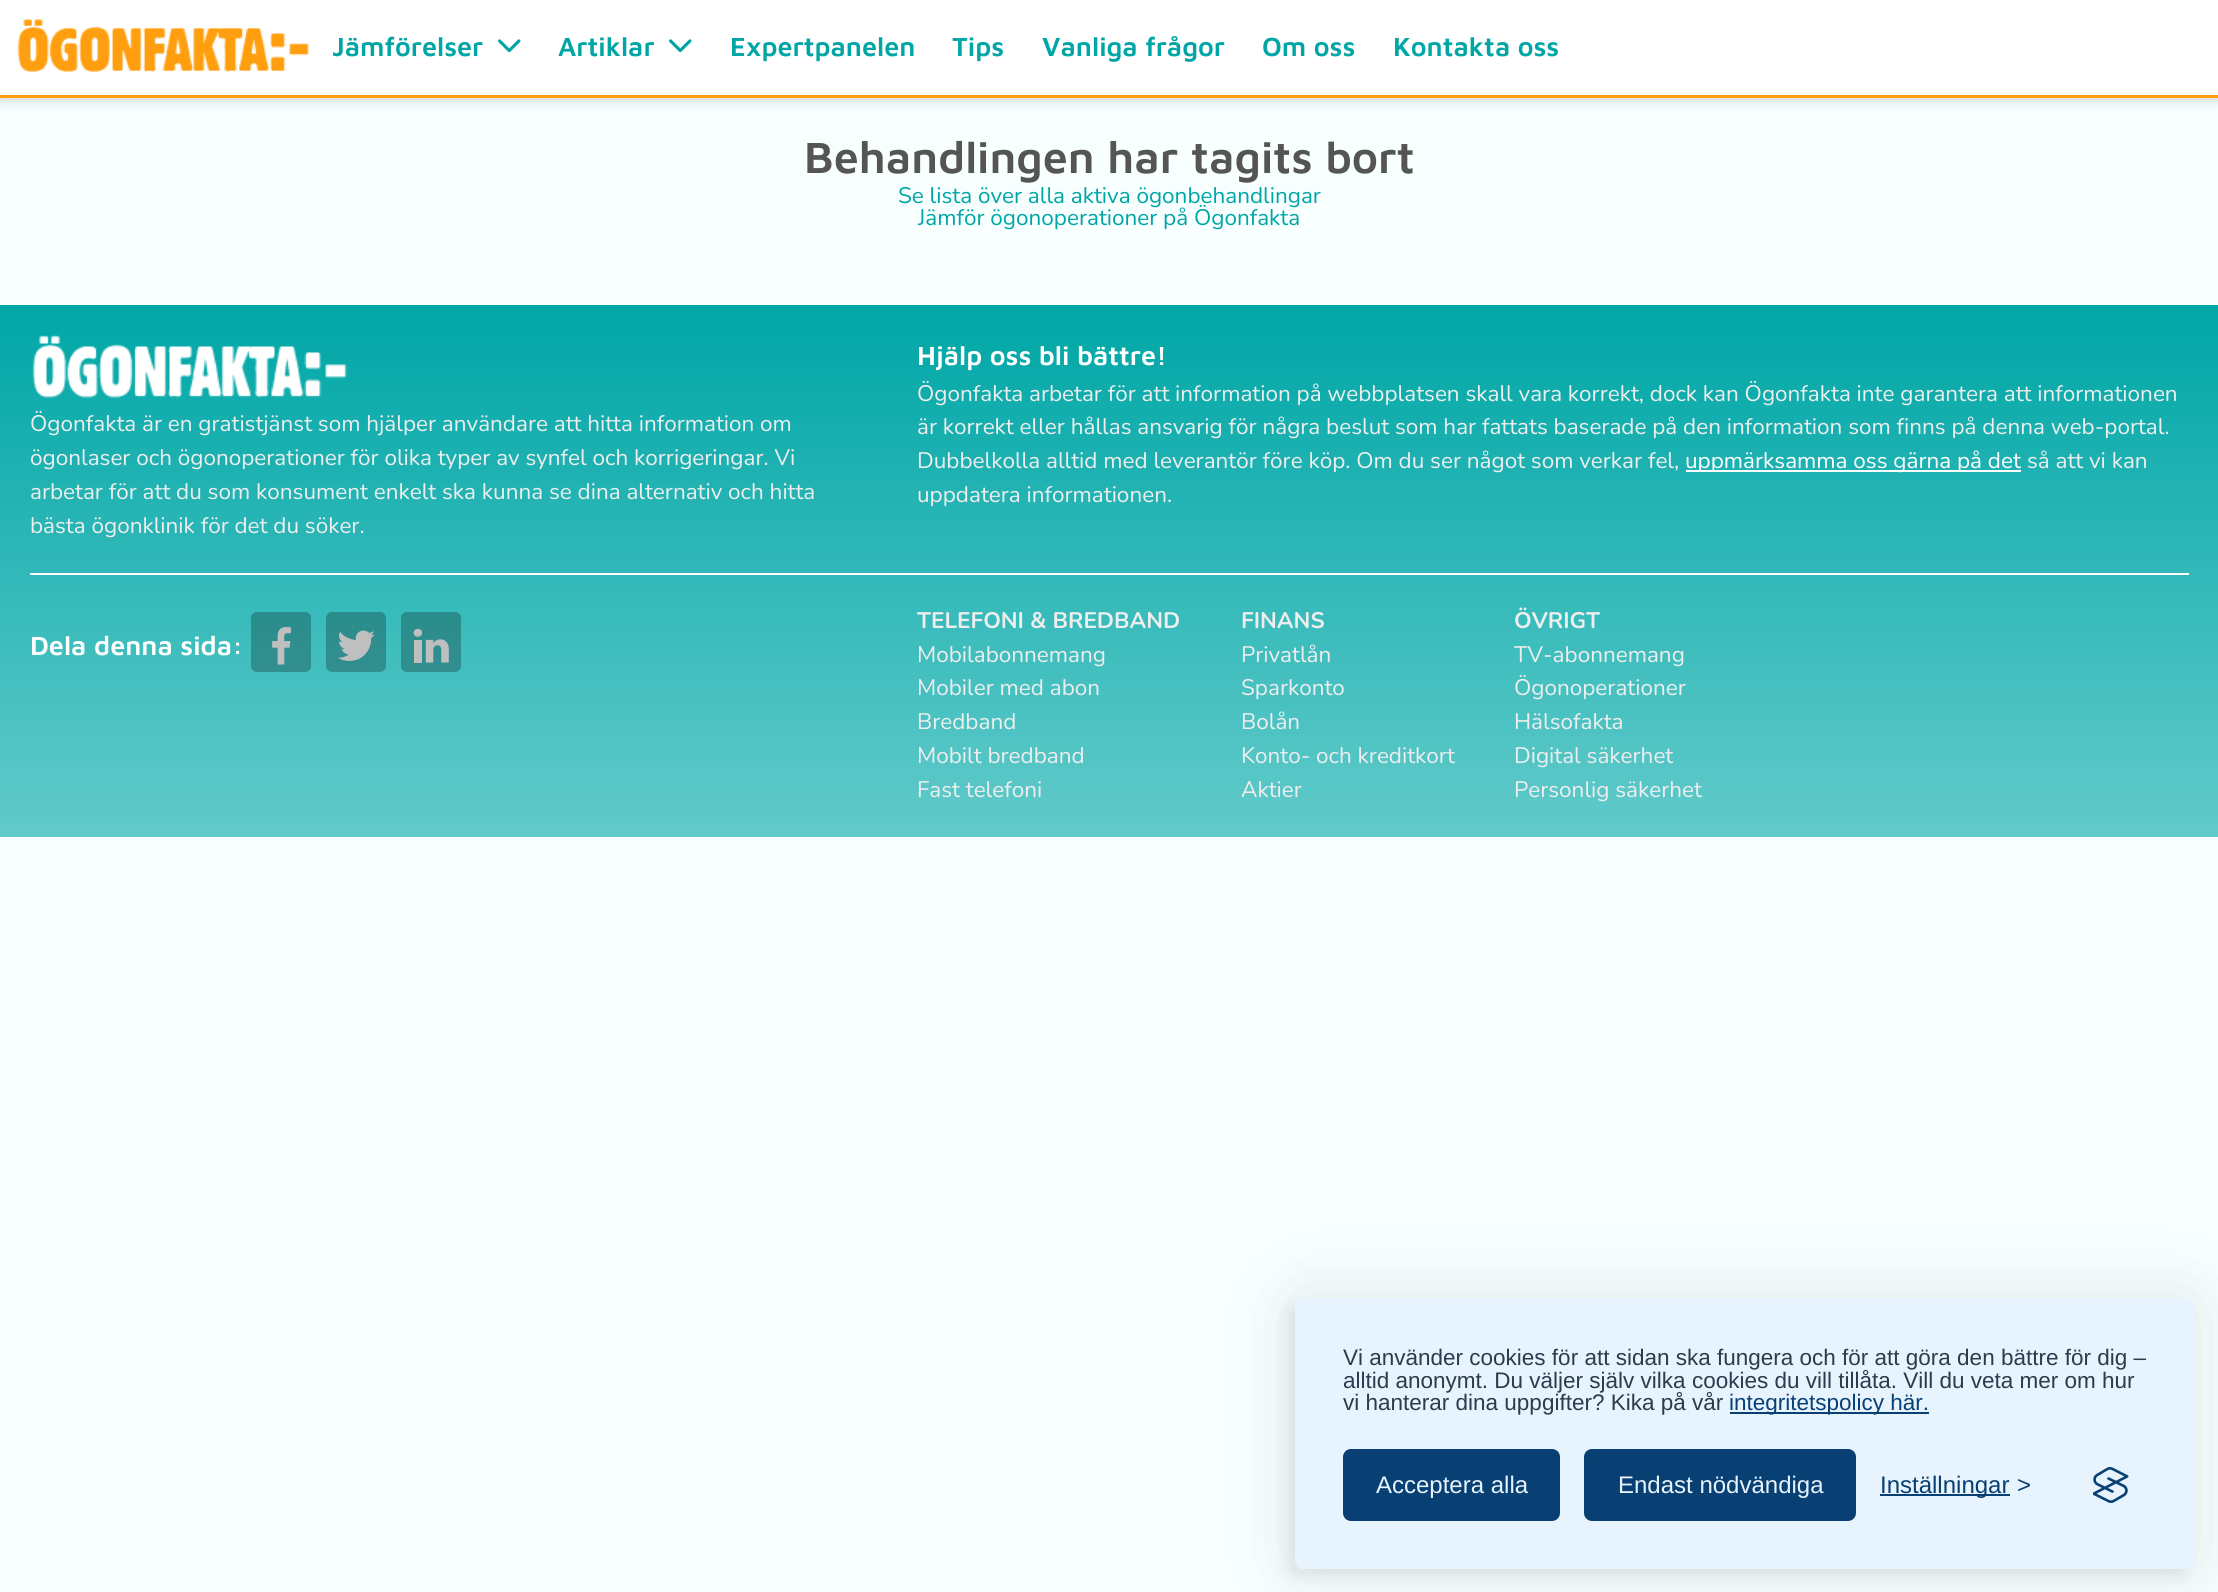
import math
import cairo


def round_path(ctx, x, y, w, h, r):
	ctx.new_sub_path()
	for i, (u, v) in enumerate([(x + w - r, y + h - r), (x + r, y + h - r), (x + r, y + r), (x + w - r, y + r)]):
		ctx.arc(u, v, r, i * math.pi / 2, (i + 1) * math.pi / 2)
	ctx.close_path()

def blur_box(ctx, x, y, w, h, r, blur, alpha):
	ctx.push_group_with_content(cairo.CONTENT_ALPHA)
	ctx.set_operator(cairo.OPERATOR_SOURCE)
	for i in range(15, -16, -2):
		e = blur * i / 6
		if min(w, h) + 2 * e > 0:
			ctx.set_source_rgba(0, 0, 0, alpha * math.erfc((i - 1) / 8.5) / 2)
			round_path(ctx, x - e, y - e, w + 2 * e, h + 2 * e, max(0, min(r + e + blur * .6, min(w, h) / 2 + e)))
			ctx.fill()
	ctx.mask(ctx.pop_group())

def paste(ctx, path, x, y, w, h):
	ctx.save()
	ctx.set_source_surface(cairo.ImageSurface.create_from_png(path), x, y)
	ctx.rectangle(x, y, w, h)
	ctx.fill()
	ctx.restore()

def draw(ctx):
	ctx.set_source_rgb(0.969, 1, 1)
	ctx.paint()
	ctx.set_source_rgb(0, 0, 0)
	blur_box(ctx, 0, -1, 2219, 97, 0, 7.5, 0.3)
	ctx.set_source_rgb(1, 1, 1)
	ctx.rectangle(0, 0, 2218, 95)
	ctx.fill()
	ctx.set_source_rgb(1, 0.62, 0.055)
	ctx.rectangle(0, 95, 2218, 3)
	ctx.fill()
	paste(ctx, 'media/1.png', 17, 19, 292, 53)
	ctx.select_font_face('Maven Pro SemiBold')
	ctx.set_font_size(27)
	ctx.set_source_rgb(0, 0.651, 0.651)
	ctx.move_to(332, 56)
	ctx.show_text('Jämförelser')
	paste(ctx, 'media/2.png', 498, 39, 23, 14)
	ctx.move_to(558, 56)
	ctx.show_text('Artiklar')
	paste(ctx, 'media/2.png', 669, 39, 23, 14)
	for x, y, s in [
		(730, 56, 'Expertpanelen'),
		(952, 56, 'Tips'),
		(1042, 56, 'Vanliga frågor'),
		(1262, 56, 'Om oss'),
		(1393, 56, 'Kontakta oss'),
	]:
		ctx.move_to(x, y)
		ctx.show_text(s)
	ctx.set_font_size(45)
	ctx.set_source_rgb(0.333, 0.333, 0.333)
	ctx.move_to(804, 173)
	ctx.show_text('Behandlingen har tagits bort')
	ctx.select_font_face('Nunito')
	ctx.set_font_size(22.5)
	ctx.set_source_rgb(0, 0.651, 0.651)
	ctx.move_to(898, 203)
	ctx.show_text('Se lista över alla aktiva ögonbehandlingar')
	ctx.move_to(918, 225)
	ctx.show_text('Jämför ögonoperationer på Ögonfakta')
	gradient = cairo.LinearGradient(1109, 837, 1109, 305)
	gradient.add_color_stop_rgba(0, 0.384, 0.792, 0.792, 1)
	gradient.add_color_stop_rgba(1, 0, 0.651, 0.651, 1)
	ctx.set_source(gradient)
	ctx.rectangle(0, 305, 2218, 532)
	ctx.fill()
	paste(ctx, 'media/3.png', 32, 335, 315, 63)
	ctx.set_source_rgb(0.933, 0.933, 0.933)
	for x, y, s in [
		(30, 431, 'Ögonfakta är en gratistjänst som hjälper användare att hitta information om'),
		(30, 465, 'ögonlaser och ögonoperationer för olika typer av synfel och korrigeringar. Vi'),
		(30, 499, 'arbetar för att du som konsument enkelt ska kunna se dina alternativ och hitta'),
		(30, 533, 'bästa ögonklinik för det du söker.'),
	]:
		ctx.move_to(x, y)
		ctx.show_text(s)
	ctx.select_font_face('Maven Pro SemiBold')
	ctx.set_font_size(27)
	ctx.set_source_rgb(1, 1, 1)
	ctx.move_to(917, 365)
	ctx.show_text('Hjälp oss bli bättre!')
	ctx.select_font_face('Nunito')
	ctx.set_font_size(22.5)
	ctx.set_source_rgb(0.933, 0.933, 0.933)
	for x, y, s in [
		(917, 401, 'Ögonfakta arbetar för att information på webbplatsen skall vara korrekt, dock kan Ögonfakta inte garantera att informationen'),
		(917, 434, 'är korrekt eller hållas ansvarig för några beslut som har fattats baserade på den information som finns på denna web-portal.'),
		(917, 468, 'Dubbelkolla alltid med leverantör före köp. Om du ser något som verkar fel,'),
	]:
		ctx.move_to(x, y)
		ctx.show_text(s)
	ctx.set_source_rgb(1, 1, 1)
	ctx.rectangle(1686, 470, 335, 2)
	ctx.fill()
	ctx.move_to(1685, 468)
	ctx.show_text('uppmärksamma oss gärna på det')
	ctx.set_source_rgb(0.933, 0.933, 0.933)
	ctx.move_to(2027, 468)
	ctx.show_text('så att vi kan')
	ctx.move_to(917, 502)
	ctx.show_text('uppdatera informationen.')
	ctx.set_source_rgb(1, 1, 1)
	ctx.rectangle(30, 573, 2159, 2)
	ctx.fill()
	ctx.select_font_face('Maven Pro SemiBold')
	ctx.set_font_size(27)
	ctx.move_to(30, 655)
	ctx.show_text('Dela denna sida:')
	paste(ctx, 'media/4.png', 272, 627, 19, 38)
	ctx.set_source_rgba(0, 0, 0, 0.25)
	round_path(ctx, 251, 612, 60, 60, 6)
	ctx.fill()
	paste(ctx, 'media/5.png', 338, 630, 37, 31)
	round_path(ctx, 326, 612, 60, 60, 6)
	ctx.fill()
	paste(ctx, 'media/6.png', 413, 628, 36, 35)
	round_path(ctx, 401, 612, 60, 60, 6)
	ctx.fill()
	ctx.select_font_face('Nunito', cairo.FONT_SLANT_NORMAL, cairo.FONT_WEIGHT_BOLD)
	ctx.set_font_size(22.5)
	ctx.set_source_rgb(0.933, 0.933, 0.933)
	ctx.move_to(917, 628)
	ctx.show_text('TELEFONI & BREDBAND')
	ctx.select_font_face('Nunito')
	for x, y, s in [
		(917, 662, 'Mobilabonnemang'),
		(917, 695, 'Mobiler med abon'),
		(917, 729, 'Bredband'),
		(917, 763, 'Mobilt bredband'),
		(917, 797, 'Fast telefoni'),
	]:
		ctx.move_to(x, y)
		ctx.show_text(s)
	ctx.select_font_face('Nunito', cairo.FONT_SLANT_NORMAL, cairo.FONT_WEIGHT_BOLD)
	ctx.move_to(1241, 628)
	ctx.show_text('FINANS')
	ctx.select_font_face('Nunito')
	for x, y, s in [
		(1241, 662, 'Privatlån'),
		(1241, 695, 'Sparkonto'),
		(1241, 729, 'Bolån'),
		(1241, 763, 'Konto- och kreditkort'),
		(1241, 797, 'Aktier'),
	]:
		ctx.move_to(x, y)
		ctx.show_text(s)
	ctx.select_font_face('Nunito', cairo.FONT_SLANT_NORMAL, cairo.FONT_WEIGHT_BOLD)
	ctx.move_to(1514, 628)
	ctx.show_text('ÖVRIGT')
	ctx.select_font_face('Nunito')
	for x, y, s in [
		(1514, 662, 'TV-abonnemang'),
		(1514, 695, 'Ögonoperationer'),
		(1514, 729, 'Hälsofakta'),
		(1514, 763, 'Digital säkerhet'),
		(1514, 797, 'Personlig säkerhet'),
	]:
		ctx.move_to(x, y)
		ctx.show_text(s)
	ctx.set_source_rgb(0, 0, 0)
	blur_box(ctx, 1295, 1298, 900, 271, 8, 37.5, 0.1)
	blur_box(ctx, 1287, 1305, 900, 272, 8, 7.5, 0.07)
	ctx.set_source_rgb(0.906, 0.953, 0.992)
	round_path(ctx, 1295, 1298, 900, 271, 8)
	ctx.fill()
	ctx.select_font_face('Liberation Sans')
	ctx.set_source_rgb(0.173, 0.231, 0.302)
	for x, y, s in [
		(1343, 1365, 'Vi använder cookies för att sidan ska fungera och för att göra den bättre för dig –'),
		(1343, 1388, 'alltid anonymt. Du väljer själv vilka cookies du vill tillåta. Vill du veta mer om hur'),
		(1343, 1410, 'vi hanterar dina uppgifter? Kika på vår'),
	]:
		ctx.move_to(x, y)
		ctx.show_text(s)
	ctx.set_source_rgb(0.035, 0.251, 0.455)
	ctx.rectangle(1730, 1412, 199, 2)
	ctx.fill()
	ctx.move_to(1729, 1410)
	ctx.show_text('integritetspolicy här.')
	round_path(ctx, 1344.5, 1450.5, 214, 69, 6.5)
	ctx.fill_preserve()
	ctx.set_line_width(3)
	ctx.stroke()
	ctx.set_font_size(24)
	ctx.set_source_rgb(0.906, 0.953, 0.992)
	ctx.move_to(1376, 1493)
	ctx.show_text('Acceptera alla')
	ctx.set_source_rgb(0.035, 0.251, 0.455)
	round_path(ctx, 1585.5, 1450.5, 269, 69, 6.5)
	ctx.fill_preserve()
	ctx.stroke()
	ctx.set_source_rgb(0.906, 0.953, 0.992)
	ctx.move_to(1618, 1493)
	ctx.show_text('Endast nödvändiga')
	ctx.set_source_rgb(0.035, 0.251, 0.455)
	ctx.rectangle(1880, 1494, 130, 2)
	ctx.fill()
	ctx.move_to(1880, 1493)
	ctx.show_text('Inställningar')
	ctx.move_to(2017, 1493)
	ctx.show_text('>')
	paste(ctx, 'media/7.png', 2093, 1467, 36, 36)


surface = cairo.ImageSurface(cairo.FORMAT_RGB24, 2218, 1592)
ctx = cairo.Context(surface)
options = cairo.FontOptions()
options.set_hint_metrics(cairo.HINT_METRICS_OFF)
options.set_hint_style(cairo.HINT_STYLE_NONE)
ctx.set_font_options(options)
ctx.set_miter_limit(4)
draw(ctx)
surface.write_to_png('image.png')
